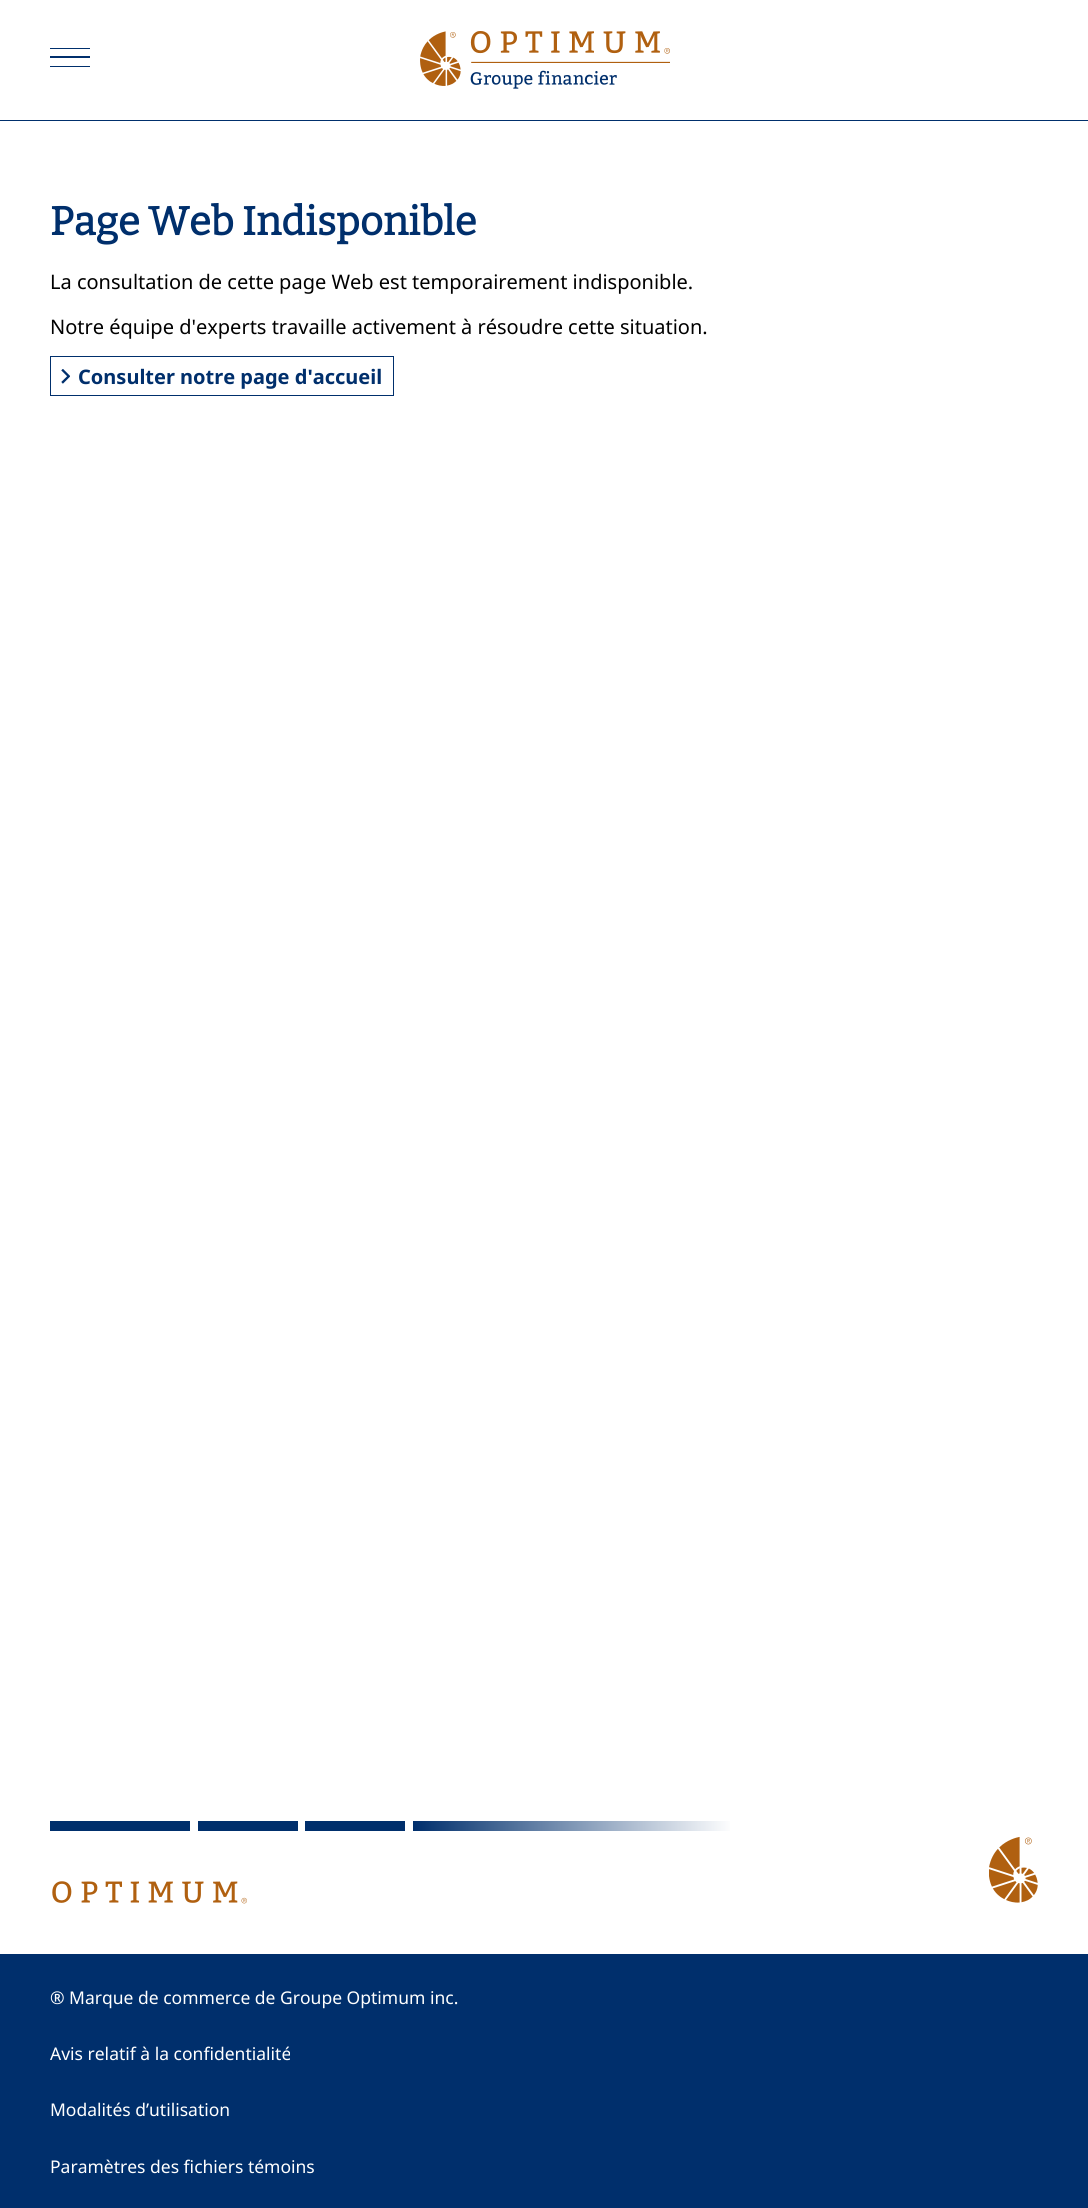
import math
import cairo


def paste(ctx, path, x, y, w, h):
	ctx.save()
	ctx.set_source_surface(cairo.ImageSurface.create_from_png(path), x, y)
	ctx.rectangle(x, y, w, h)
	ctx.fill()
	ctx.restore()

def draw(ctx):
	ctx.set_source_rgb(1, 1, 1)
	ctx.paint()
	ctx.set_source_rgb(0, 0.184, 0.424)
	ctx.rectangle(0, 120, 1088, 1)
	ctx.fill()
	ctx.new_path()
	ctx.move_to(50, 48)
	ctx.line_to(90, 48)
	ctx.line_to(90, 49)
	ctx.line_to(50, 49)
	ctx.close_path()
	ctx.move_to(50, 56)
	ctx.line_to(90, 56)
	ctx.line_to(90, 58)
	ctx.line_to(50, 58)
	ctx.close_path()
	ctx.move_to(50, 66)
	ctx.line_to(90, 66)
	ctx.line_to(90, 67)
	ctx.line_to(50, 67)
	ctx.close_path()
	ctx.fill()
	paste(ctx, 'media/1.png', 420, 31, 250, 58)
	ctx.select_font_face('Bitter', cairo.FONT_SLANT_NORMAL, cairo.FONT_WEIGHT_BOLD)
	ctx.set_font_size(40)
	ctx.move_to(50, 235)
	ctx.show_text('Page Web Indisponible')
	ctx.select_font_face('Noto Sans')
	ctx.set_font_size(20)
	ctx.set_source_rgb(0, 0, 0)
	ctx.move_to(50, 289)
	ctx.show_text('La consultation de cette page Web est temporairement indisponible.')
	ctx.move_to(50, 334)
	ctx.show_text('Notre équipe d\'experts travaille activement à résoudre cette situation.')
	ctx.rectangle(50.5, 356.5, 343, 39)
	ctx.set_source_rgb(0, 0.184, 0.424)
	ctx.set_line_width(1)
	ctx.stroke()
	paste(ctx, 'media/2.png', 61, 369, 9, 15)
	ctx.select_font_face('Noto Sans', cairo.FONT_SLANT_NORMAL, cairo.FONT_WEIGHT_BOLD)
	ctx.move_to(78, 384)
	ctx.show_text('Consulter notre page d\'accueil')
	ctx.rectangle(50, 1821, 140, 10)
	ctx.rectangle(198, 1821, 100, 10)
	ctx.rectangle(305, 1821, 100, 10)
	ctx.fill()
	gradient = cairo.LinearGradient(413, 1826, 733, 1826)
	gradient.add_color_stop_rgba(0, 0, 0.184, 0.424, 1)
	gradient.add_color_stop_rgba(1, 1, 1, 1, 1)
	ctx.set_source(gradient)
	ctx.rectangle(413, 1821, 317, 10)
	ctx.fill()
	paste(ctx, 'media/3.png', 52, 1881, 195, 23)
	paste(ctx, 'media/4.png', 989, 1836, 49, 67)
	ctx.set_source_rgb(0, 0.184, 0.424)
	ctx.rectangle(0, 1954, 1088, 254)
	ctx.fill()
	ctx.select_font_face('Noto Sans')
	ctx.set_font_size(17.5)
	ctx.set_source_rgb(1, 1, 1)
	for x, y, s in [
		(50, 2004, '® Marque de commerce de Groupe Optimum inc.'),
		(50, 2060, 'Avis relatif à la confidentialité'),
		(50, 2116, 'Modalités d’utilisation'),
		(50, 2173, 'Paramètres des fichiers témoins'),
	]:
		ctx.move_to(x, y)
		ctx.show_text(s)


surface = cairo.ImageSurface(cairo.FORMAT_RGB24, 1088, 2208)
ctx = cairo.Context(surface)
options = cairo.FontOptions()
options.set_hint_metrics(cairo.HINT_METRICS_OFF)
options.set_hint_style(cairo.HINT_STYLE_NONE)
ctx.set_font_options(options)
ctx.set_miter_limit(4)
draw(ctx)
surface.write_to_png('image.png')
